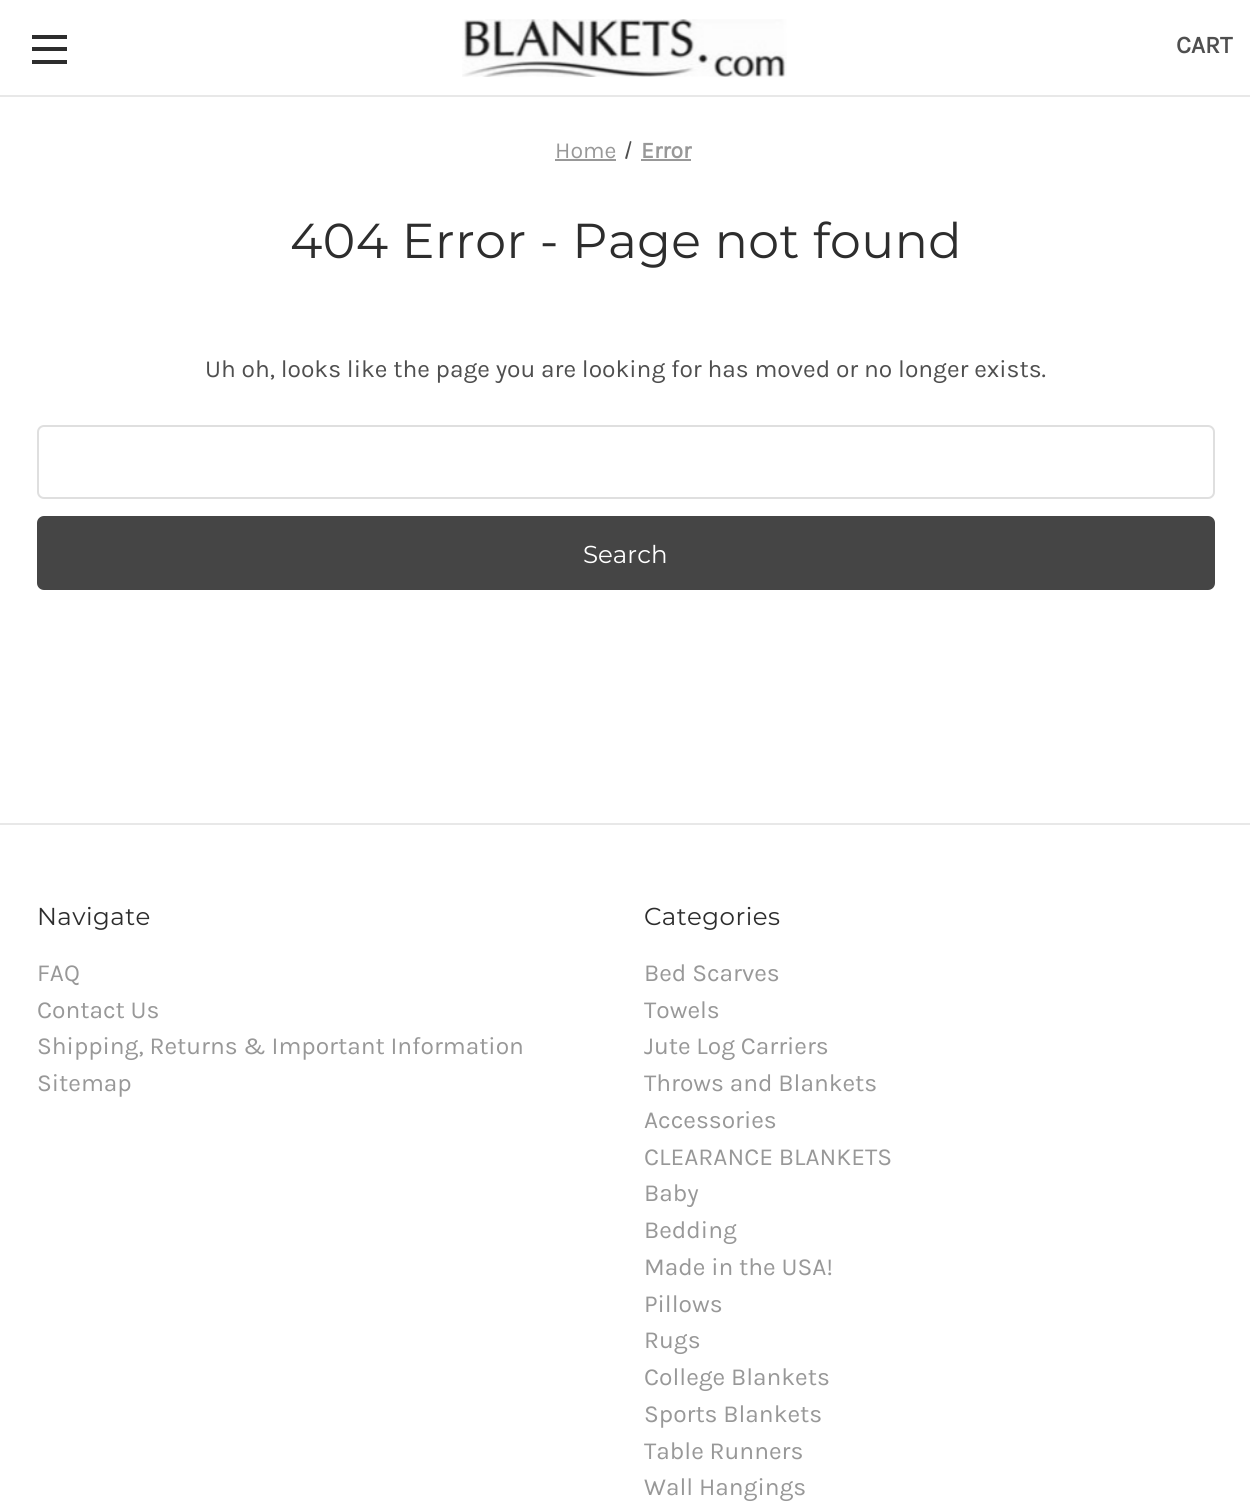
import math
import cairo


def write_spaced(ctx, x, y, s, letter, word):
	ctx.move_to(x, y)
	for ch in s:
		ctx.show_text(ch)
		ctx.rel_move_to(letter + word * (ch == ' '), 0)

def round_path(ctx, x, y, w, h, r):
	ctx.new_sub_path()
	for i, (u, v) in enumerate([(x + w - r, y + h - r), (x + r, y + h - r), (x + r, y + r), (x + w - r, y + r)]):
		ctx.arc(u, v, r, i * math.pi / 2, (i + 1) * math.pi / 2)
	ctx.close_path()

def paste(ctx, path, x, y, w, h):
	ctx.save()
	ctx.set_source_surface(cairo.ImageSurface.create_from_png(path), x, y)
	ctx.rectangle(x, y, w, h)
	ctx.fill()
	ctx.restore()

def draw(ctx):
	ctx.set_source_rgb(1, 1, 1)
	ctx.paint()
	ctx.set_source_rgb(0.91, 0.91, 0.91)
	ctx.rectangle(0, 95, 1250, 2)
	ctx.fill()
	ctx.set_source_rgb(0.176, 0.176, 0.176)
	ctx.rectangle(32, 47, 35, 4)
	ctx.rectangle(32, 35, 35, 4)
	ctx.rectangle(32, 60, 35, 4)
	ctx.fill()
	paste(ctx, 'media/1.png', 462, 19, 325, 58)
	ctx.select_font_face('Karla', cairo.FONT_SLANT_NORMAL, cairo.FONT_WEIGHT_BOLD)
	ctx.set_font_size(24.5)
	ctx.set_source_rgb(0.31, 0.31, 0.31)
	ctx.move_to(1176, 53)
	ctx.show_text('CART')
	ctx.select_font_face('Karla')
	ctx.set_font_size(23)
	ctx.set_source_rgb(0.596, 0.596, 0.596)
	ctx.move_to(555, 158)
	ctx.show_text('Home')
	ctx.rectangle(555, 159, 61, 2)
	ctx.fill()
	ctx.set_source_rgb(0.31, 0.31, 0.31)
	ctx.new_path()
	ctx.move_to(630, 141)
	ctx.line_to(631.5, 141.5)
	ctx.line_to(627, 159)
	ctx.line_to(625, 158.5)
	ctx.close_path()
	ctx.fill()
	ctx.select_font_face('Karla', cairo.FONT_SLANT_NORMAL, cairo.FONT_WEIGHT_BOLD)
	ctx.set_source_rgb(0.596, 0.596, 0.596)
	ctx.move_to(641, 158)
	ctx.show_text('Error')
	ctx.rectangle(641, 159, 50, 2)
	ctx.fill()
	ctx.select_font_face('Montserrat Thin')
	ctx.set_font_size(49)
	ctx.set_source_rgb(0.176, 0.176, 0.176)
	write_spaced(ctx, 290, 258, '404 Error - Page not found', 0.45, 0)
	ctx.select_font_face('Karla')
	ctx.set_font_size(24.5)
	ctx.set_source_rgb(0.31, 0.31, 0.31)
	ctx.move_to(205, 377)
	ctx.show_text('Uh oh, looks like the page you are looking for has moved or no longer exists.')
	round_path(ctx, 38, 426, 1176, 72, 6)
	ctx.set_source_rgb(0.875, 0.875, 0.875)
	ctx.stroke()
	ctx.set_source_rgb(0.271, 0.271, 0.271)
	round_path(ctx, 38, 517, 1176, 72, 6)
	ctx.fill_preserve()
	ctx.stroke()
	ctx.select_font_face('Montserrat Thin')
	ctx.set_source_rgb(1, 1, 1)
	ctx.move_to(583, 563)
	ctx.show_text('Search')
	ctx.set_source_rgb(0.91, 0.91, 0.91)
	ctx.rectangle(0, 823, 1250, 2)
	ctx.fill()
	ctx.set_source_rgb(0.176, 0.176, 0.176)
	write_spaced(ctx, 37, 925, 'Navigate', 0.45, 0)
	ctx.select_font_face('Karla')
	ctx.set_source_rgb(0.596, 0.596, 0.596)
	for x, y, s in [
		(37, 981, 'FAQ'),
		(37, 1018, 'Contact Us'),
		(37, 1054, 'Shipping, Returns & Important Information'),
		(37, 1091, 'Sitemap'),
	]:
		ctx.move_to(x, y)
		ctx.show_text(s)
	ctx.select_font_face('Montserrat Thin')
	ctx.set_source_rgb(0.176, 0.176, 0.176)
	write_spaced(ctx, 644, 925, 'Categories', 0.45, 0)
	ctx.select_font_face('Karla')
	ctx.set_source_rgb(0.596, 0.596, 0.596)
	for x, y, s in [
		(644, 981, 'Bed Scarves'),
		(644, 1018, 'Towels'),
		(644, 1054, 'Jute Log Carriers'),
		(644, 1091, 'Throws and Blankets'),
		(644, 1128, 'Accessories'),
		(644, 1165, 'CLEARANCE BLANKETS'),
		(644, 1201, 'Baby'),
		(644, 1238, 'Bedding'),
		(644, 1275, 'Made in the USA!'),
		(644, 1312, 'Pillows'),
		(644, 1348, 'Rugs'),
		(644, 1385, 'College Blankets'),
		(644, 1422, 'Sports Blankets'),
		(644, 1459, 'Table Runners'),
		(644, 1495, 'Wall Hangings'),
	]:
		ctx.move_to(x, y)
		ctx.show_text(s)


surface = cairo.ImageSurface(cairo.FORMAT_RGB24, 1250, 1510)
ctx = cairo.Context(surface)
options = cairo.FontOptions()
options.set_hint_metrics(cairo.HINT_METRICS_OFF)
options.set_hint_style(cairo.HINT_STYLE_NONE)
ctx.set_font_options(options)
ctx.set_miter_limit(4)
draw(ctx)
surface.write_to_png('image.png')
